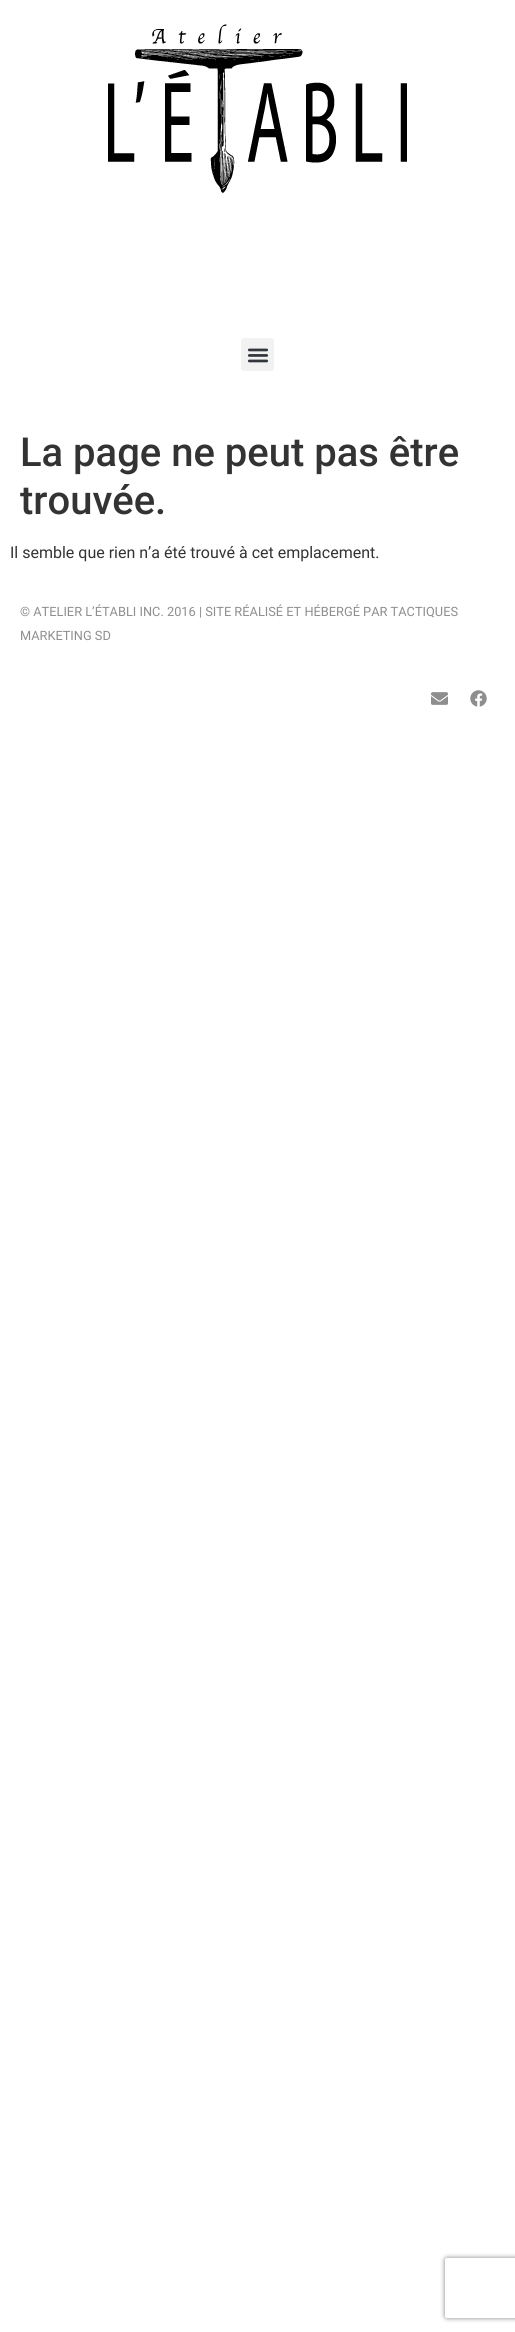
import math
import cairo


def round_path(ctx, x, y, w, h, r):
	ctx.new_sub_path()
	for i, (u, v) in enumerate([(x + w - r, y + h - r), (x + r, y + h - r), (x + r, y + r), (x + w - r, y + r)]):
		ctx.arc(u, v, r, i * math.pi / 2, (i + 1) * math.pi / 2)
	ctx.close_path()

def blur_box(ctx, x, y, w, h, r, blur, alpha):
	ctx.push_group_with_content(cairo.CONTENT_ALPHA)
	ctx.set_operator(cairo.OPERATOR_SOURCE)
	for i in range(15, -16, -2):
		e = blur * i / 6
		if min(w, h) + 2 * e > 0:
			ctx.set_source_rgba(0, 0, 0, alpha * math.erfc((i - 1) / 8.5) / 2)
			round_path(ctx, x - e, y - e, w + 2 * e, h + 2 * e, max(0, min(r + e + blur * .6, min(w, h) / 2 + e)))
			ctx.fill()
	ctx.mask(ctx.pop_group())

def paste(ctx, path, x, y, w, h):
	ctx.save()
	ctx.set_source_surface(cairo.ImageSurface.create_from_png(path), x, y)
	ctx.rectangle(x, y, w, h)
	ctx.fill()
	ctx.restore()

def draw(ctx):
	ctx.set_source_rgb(1, 1, 1)
	ctx.paint()
	paste(ctx, 'media/1.png', 108, 24, 299, 169)
	ctx.set_source_rgb(0.949, 0.949, 0.949)
	round_path(ctx, 241, 338, 33, 33, 3)
	ctx.fill()
	paste(ctx, 'media/2.png', 247, 348, 22, 15)
	ctx.select_font_face('Roboto Medium')
	ctx.set_font_size(40)
	ctx.set_source_rgb(0.2, 0.2, 0.2)
	ctx.move_to(20, 466)
	ctx.show_text('La page ne peut pas être')
	ctx.move_to(20, 514)
	ctx.show_text('trouvée.')
	ctx.select_font_face('Roboto')
	ctx.set_font_size(16)
	ctx.move_to(10, 558)
	ctx.show_text('Il semble que rien n’a été trouvé à cet emplacement.')
	ctx.set_font_size(12.8)
	ctx.set_source_rgb(0.557, 0.557, 0.557)
	ctx.move_to(20, 616)
	ctx.show_text('© ATELIER L’ÉTABLI INC. 2016 | SITE RÉALISÉ ET HÉBERGÉ PAR TACTIQUES')
	ctx.move_to(20, 640)
	ctx.show_text('MARKETING SD')
	paste(ctx, 'media/3.png', 431, 692, 17, 13)
	paste(ctx, 'media/4.png', 470, 690, 17, 17)
	ctx.save()
	ctx.set_fill_rule(cairo.FILL_RULE_EVEN_ODD)
	ctx.new_path()
	ctx.move_to(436, 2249)
	ctx.line_to(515, 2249)
	ctx.line_to(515, 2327)
	ctx.line_to(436, 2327)
	ctx.close_path()
	ctx.move_to(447, 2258)
	ctx.line_to(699, 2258)
	ctx.curve_to(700, 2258, 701, 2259, 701, 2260)
	ctx.line_to(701, 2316)
	ctx.curve_to(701, 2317, 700, 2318, 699, 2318)
	ctx.line_to(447, 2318)
	ctx.curve_to(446, 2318, 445, 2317, 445, 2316)
	ctx.line_to(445, 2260)
	ctx.curve_to(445, 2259, 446, 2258, 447, 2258)
	ctx.close_path()
	ctx.clip()
	ctx.set_source_rgb(0.502, 0.502, 0.502)
	blur_box(ctx, 445, 2258, 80, 60, 2, 2.5, 1)
	ctx.restore()


surface = cairo.ImageSurface(cairo.FORMAT_RGB24, 515, 2332)
ctx = cairo.Context(surface)
options = cairo.FontOptions()
options.set_hint_metrics(cairo.HINT_METRICS_OFF)
options.set_hint_style(cairo.HINT_STYLE_NONE)
ctx.set_font_options(options)
ctx.set_miter_limit(4)
draw(ctx)
surface.write_to_png('image.png')
